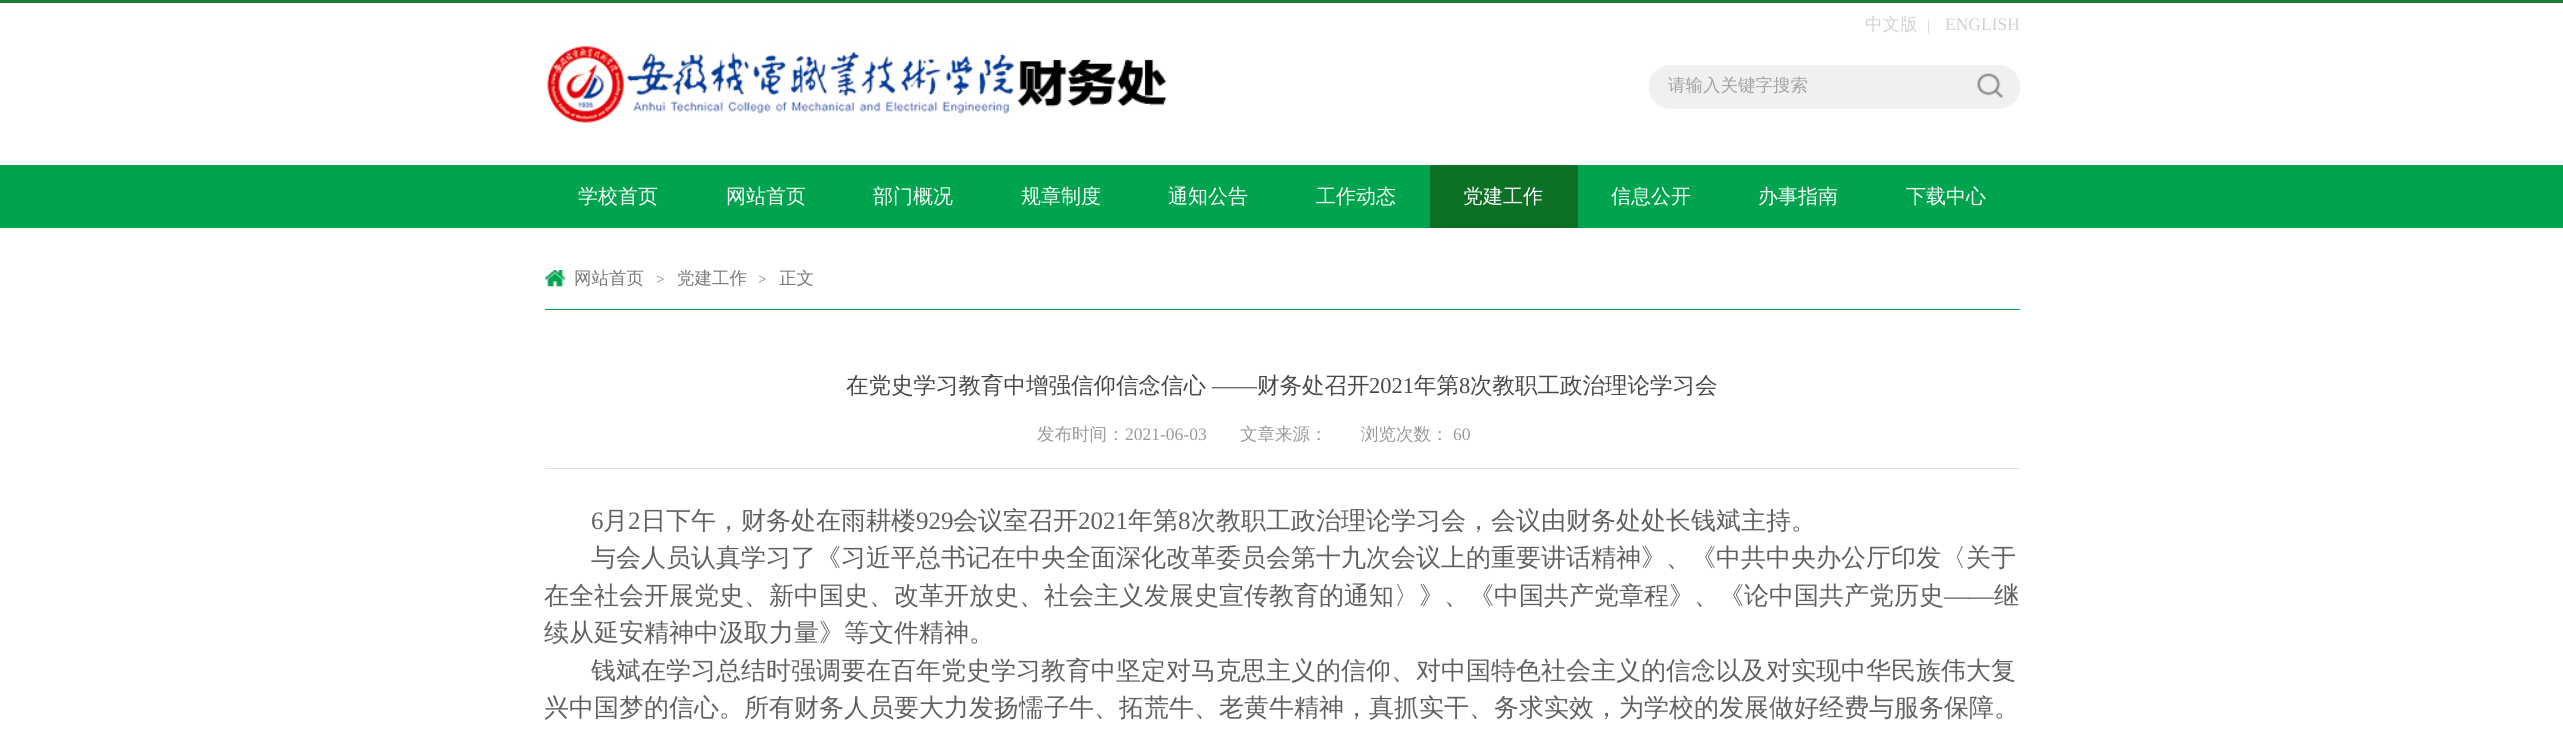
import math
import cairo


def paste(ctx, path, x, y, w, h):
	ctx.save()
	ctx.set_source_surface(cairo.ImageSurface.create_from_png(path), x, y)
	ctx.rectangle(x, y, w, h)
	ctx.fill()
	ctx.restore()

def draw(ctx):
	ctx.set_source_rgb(1, 1, 1)
	ctx.paint()
	ctx.set_source_rgb(0.102, 0.478, 0.196)
	ctx.rectangle(0, 0, 2563, 3)
	ctx.fill()
	paste(ctx, 'media/1.png', 547, 46, 620, 77)
	ctx.select_font_face('WenQuanYi Zen Hei Medium')
	ctx.set_font_size(17.5)
	ctx.set_source_rgb(0.82, 0.82, 0.82)
	ctx.move_to(1865, 30)
	ctx.show_text('中文版')
	ctx.select_font_face('Liberation Serif')
	ctx.set_font_size(15)
	ctx.move_to(1927, 30)
	ctx.show_text('|')
	ctx.set_font_size(17.5)
	ctx.move_to(1945, 30)
	ctx.show_text('ENGLISH')
	paste(ctx, 'media/2.png', 1649, 65, 371, 44)
	ctx.select_font_face('WenQuanYi Zen Hei Medium')
	ctx.set_source_rgb(0.635, 0.635, 0.635)
	ctx.move_to(1668, 91)
	ctx.show_text('请输入关键字搜索')
	paste(ctx, 'media/3.png', 1977, 73, 26, 25)
	ctx.set_source_rgb(0, 0.643, 0.306)
	ctx.rectangle(0, 165, 2563, 63)
	ctx.fill()
	ctx.set_font_size(20)
	ctx.set_source_rgb(1, 1, 1)
	for x, y, s in [
		(578, 203, '学校首页'),
		(726, 203, '网站首页'),
		(873, 203, '部门概况'),
		(1021, 203, '规章制度'),
		(1168, 203, '通知公告'),
		(1316, 203, '工作动态'),
	]:
		ctx.move_to(x, y)
		ctx.show_text(s)
	ctx.set_source_rgb(0.047, 0.443, 0.141)
	ctx.rectangle(1430, 165, 148, 63)
	ctx.fill()
	ctx.set_source_rgb(1, 1, 1)
	for x, y, s in [
		(1463, 203, '党建工作'),
		(1611, 203, '信息公开'),
		(1758, 203, '办事指南'),
		(1906, 203, '下载中心'),
	]:
		ctx.move_to(x, y)
		ctx.show_text(s)
	ctx.set_source_rgb(0, 0.643, 0.306)
	ctx.rectangle(545, 309, 1475, 1)
	ctx.fill()
	paste(ctx, 'media/4.png', 545, 270, 20, 17)
	ctx.set_font_size(17.5)
	ctx.set_source_rgb(0.471, 0.471, 0.471)
	ctx.move_to(574, 284)
	ctx.show_text('网站首页')
	ctx.select_font_face('Liberation Serif')
	ctx.set_font_size(15)
	ctx.move_to(656, 284)
	ctx.show_text('>')
	ctx.select_font_face('WenQuanYi Zen Hei Medium')
	ctx.set_font_size(17.5)
	ctx.move_to(677, 284)
	ctx.show_text('党建工作')
	ctx.select_font_face('Liberation Serif')
	ctx.set_font_size(15)
	ctx.move_to(758, 284)
	ctx.show_text('>')
	ctx.select_font_face('WenQuanYi Zen Hei Medium')
	ctx.set_font_size(17.5)
	ctx.move_to(779, 284)
	ctx.show_text('正文')
	ctx.set_font_size(22.5)
	ctx.set_source_rgb(0.282, 0.282, 0.282)
	ctx.move_to(846, 393)
	ctx.show_text('在党史学习教育中增强信仰信念信心')
	ctx.select_font_face('Liberation Serif')
	ctx.move_to(1212, 393)
	ctx.show_text('——')
	ctx.select_font_face('WenQuanYi Zen Hei Medium')
	ctx.move_to(1257, 393)
	ctx.show_text('财务处召开')
	ctx.select_font_face('Liberation Serif')
	ctx.move_to(1369, 393)
	ctx.show_text('2021')
	ctx.select_font_face('WenQuanYi Zen Hei Medium')
	ctx.move_to(1414, 393)
	ctx.show_text('年第')
	ctx.select_font_face('Liberation Serif')
	ctx.move_to(1459, 393)
	ctx.show_text('8')
	ctx.select_font_face('WenQuanYi Zen Hei Medium')
	ctx.move_to(1470, 393)
	ctx.show_text('次教职工政治理论学习会')
	ctx.set_source_rgb(0.882, 0.882, 0.882)
	ctx.rectangle(545, 468, 1475, 1)
	ctx.fill()
	ctx.set_font_size(17.5)
	ctx.set_source_rgb(0.604, 0.604, 0.604)
	ctx.move_to(1037, 440)
	ctx.show_text('发布时间：')
	ctx.select_font_face('Liberation Serif')
	ctx.move_to(1125, 440)
	ctx.show_text('2021-06-03')
	ctx.select_font_face('WenQuanYi Zen Hei Medium')
	ctx.move_to(1240, 440)
	ctx.show_text('文章来源：')
	ctx.move_to(1361, 440)
	ctx.show_text('浏览次数：')
	ctx.select_font_face('Liberation Serif')
	ctx.move_to(1453, 440)
	ctx.show_text('60')
	ctx.set_font_size(25)
	ctx.set_source_rgb(0.376, 0.376, 0.376)
	ctx.move_to(591, 529)
	ctx.show_text('6')
	ctx.select_font_face('WenQuanYi Zen Hei Medium')
	ctx.move_to(603, 529)
	ctx.show_text('月')
	ctx.select_font_face('Liberation Serif')
	ctx.move_to(628, 529)
	ctx.show_text('2')
	ctx.select_font_face('WenQuanYi Zen Hei Medium')
	ctx.move_to(641, 529)
	ctx.show_text('日下午，财务处在雨耕楼')
	ctx.select_font_face('Liberation Serif')
	ctx.move_to(916, 529)
	ctx.show_text('929')
	ctx.select_font_face('WenQuanYi Zen Hei Medium')
	ctx.move_to(953, 529)
	ctx.show_text('会议室召开')
	ctx.select_font_face('Liberation Serif')
	ctx.move_to(1078, 529)
	ctx.show_text('2021')
	ctx.select_font_face('WenQuanYi Zen Hei Medium')
	ctx.move_to(1128, 529)
	ctx.show_text('年第')
	ctx.select_font_face('Liberation Serif')
	ctx.move_to(1178, 529)
	ctx.show_text('8')
	ctx.select_font_face('WenQuanYi Zen Hei Medium')
	for x, y, s in [
		(1191, 529, '次教职工政治理论学习会，会议由财务处处长钱斌主持。'),
		(591, 566, '与会人员认真学习了《习近平总书记在中央全面深化改革委员会第十九次会议上的重要讲话精神》、《中共中央办公厅印发〈关于'),
		(544, 604, '在全社会开展党史、新中国史、改革开放史、社会主义发展史宣传教育的通知〉》、《中国共产党章程》、《论中国共产党历史'),
	]:
		ctx.move_to(x, y)
		ctx.show_text(s)
	ctx.select_font_face('Liberation Serif')
	ctx.move_to(1944, 604)
	ctx.show_text('——')
	ctx.select_font_face('WenQuanYi Zen Hei Medium')
	for x, y, s in [
		(1994, 604, '继'),
		(544, 641, '续从延安精神中汲取力量》等文件精神。'),
		(591, 679, '钱斌在学习总结时强调要在百年党史学习教育中坚定对马克思主义的信仰、对中国特色社会主义的信念以及对实现中华民族伟大复'),
		(544, 716, '兴中国梦的信心。所有财务人员要大力发扬懦子牛、拓荒牛、老黄牛精神，真抓实干、务求实效，为学校的发展做好经费与服务保障。'),
	]:
		ctx.move_to(x, y)
		ctx.show_text(s)


surface = cairo.ImageSurface(cairo.FORMAT_RGB24, 2563, 753)
ctx = cairo.Context(surface)
options = cairo.FontOptions()
options.set_hint_metrics(cairo.HINT_METRICS_OFF)
options.set_hint_style(cairo.HINT_STYLE_NONE)
ctx.set_font_options(options)
ctx.set_miter_limit(4)
draw(ctx)
surface.write_to_png('image.png')
